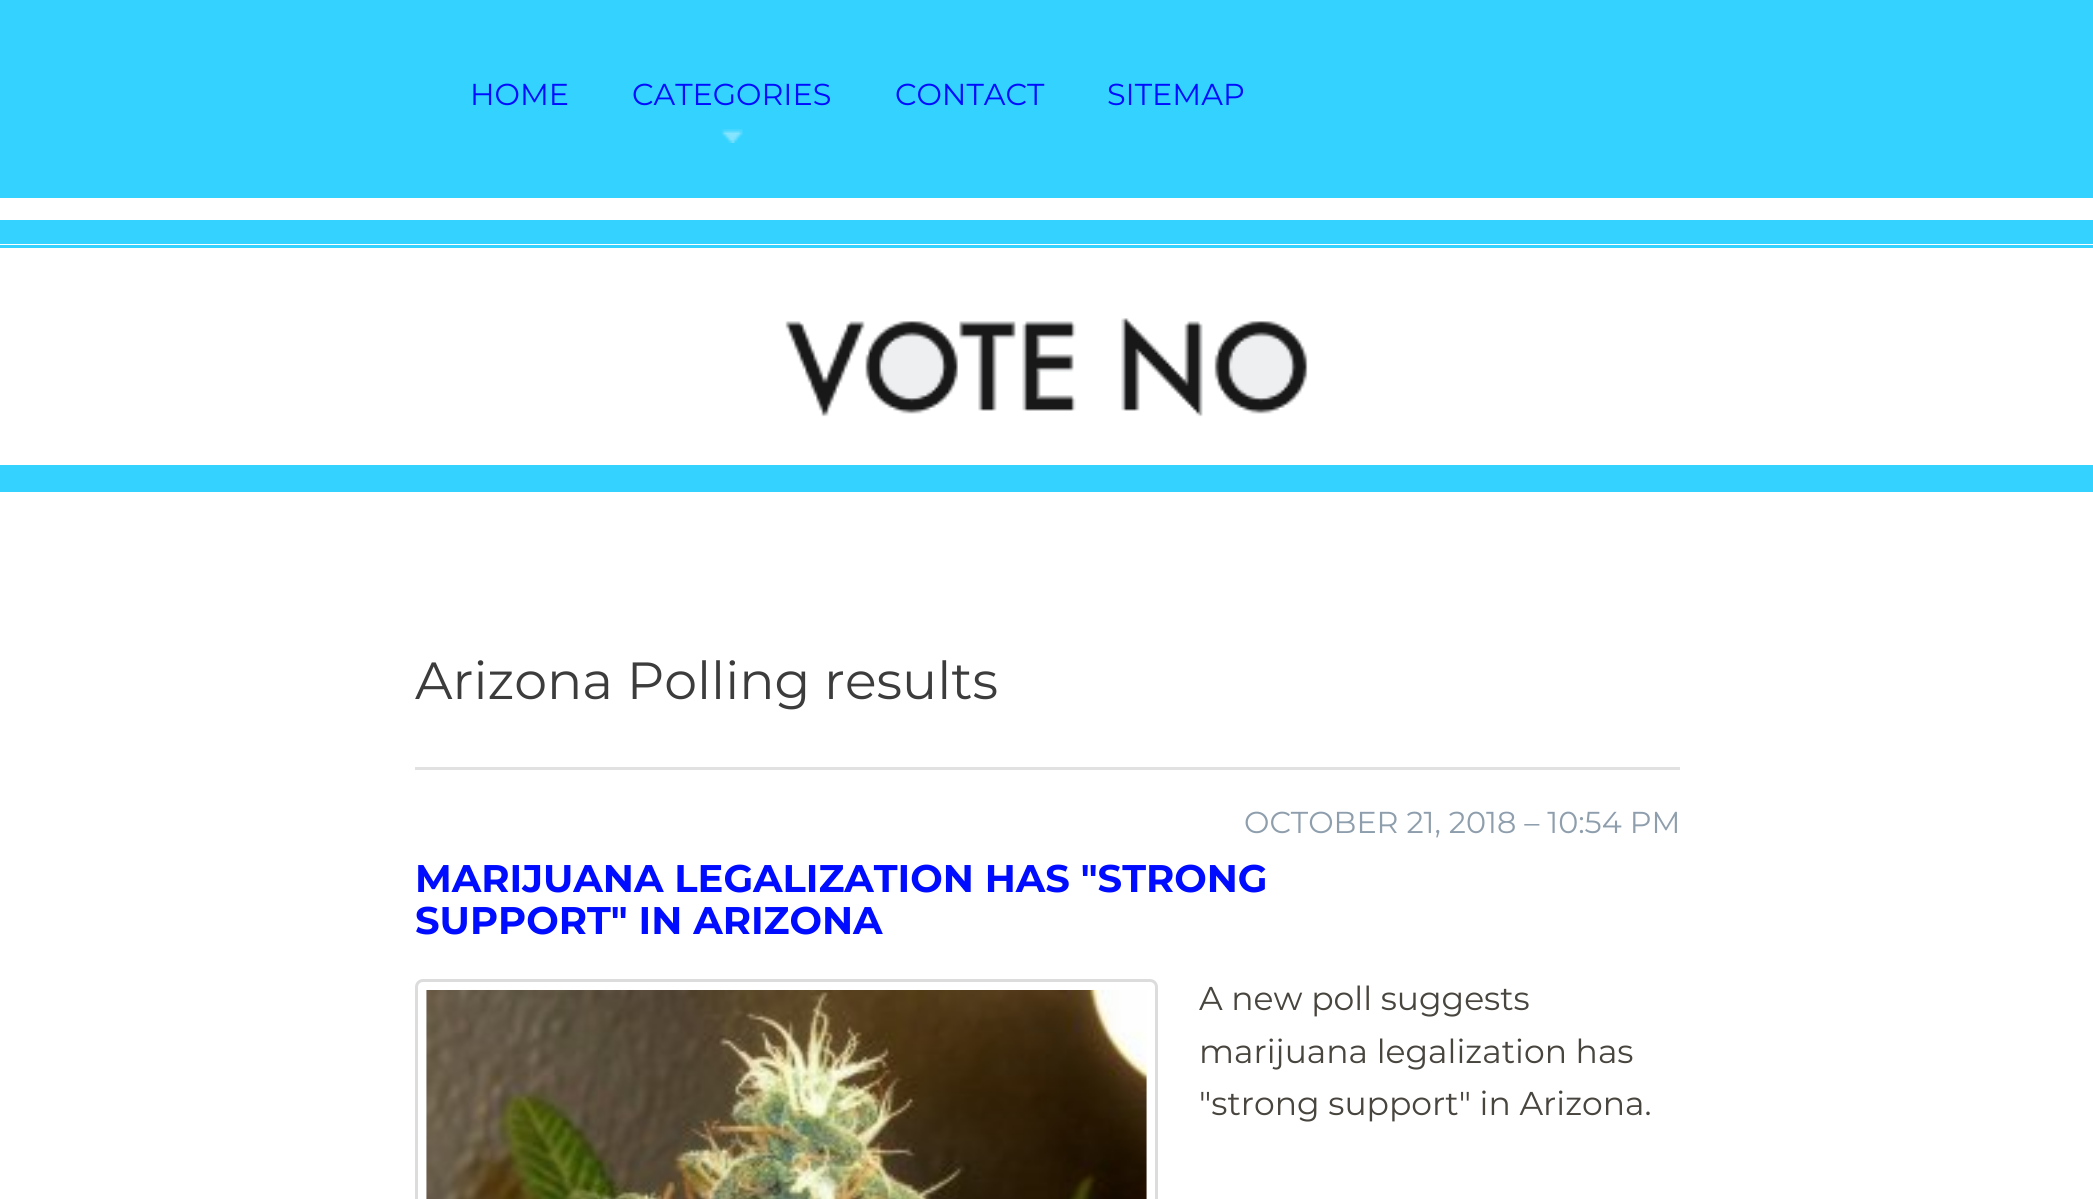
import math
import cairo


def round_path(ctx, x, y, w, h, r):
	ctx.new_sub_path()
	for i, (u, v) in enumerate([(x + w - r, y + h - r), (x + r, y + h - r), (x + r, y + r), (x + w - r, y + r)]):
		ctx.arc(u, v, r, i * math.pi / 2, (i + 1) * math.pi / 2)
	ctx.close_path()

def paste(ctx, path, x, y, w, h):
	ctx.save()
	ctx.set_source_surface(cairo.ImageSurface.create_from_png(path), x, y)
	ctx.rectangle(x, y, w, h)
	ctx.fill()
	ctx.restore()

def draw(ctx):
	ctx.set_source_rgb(0.204, 0.824, 1)
	ctx.paint()
	ctx.set_source_rgb(1, 1, 1)
	ctx.rectangle(0, 198, 2093, 22)
	ctx.fill()
	ctx.select_font_face('Montserrat')
	ctx.set_font_size(30.25)
	ctx.set_source_rgb(0, 0.047, 1)
	ctx.move_to(470, 105)
	ctx.show_text('HOME')
	paste(ctx, 'media/1.png', 721, 129, 22, 14)
	for x, y, s in [
		(632, 105, 'CATEGORIES'),
		(895, 105, 'CONTACT'),
		(1107, 105, 'SITEMAP'),
	]:
		ctx.move_to(x, y)
		ctx.show_text(s)
	ctx.set_source_rgb(1, 1, 1)
	ctx.rectangle(0, 244, 2093, 221)
	ctx.fill()
	ctx.set_source_rgb(0.204, 0.824, 1)
	ctx.rectangle(0, 245, 2093, 3)
	ctx.fill()
	paste(ctx, 'media/2.png', 785, 318, 523, 99)
	ctx.set_source_rgb(1, 1, 1)
	ctx.rectangle(0, 492, 2093, 707)
	ctx.fill()
	ctx.set_font_size(52.25)
	ctx.set_source_rgb(0.235, 0.235, 0.235)
	ctx.move_to(415, 699)
	ctx.show_text('Arizona Polling results')
	ctx.set_source_rgb(0.882, 0.882, 0.882)
	ctx.rectangle(415, 767, 1265, 3)
	ctx.fill()
	ctx.set_font_size(30.25)
	ctx.set_source_rgb(0.557, 0.62, 0.675)
	ctx.move_to(1244, 833)
	ctx.show_text('OCTOBER 21, 2018 – 10:54 PM')
	ctx.select_font_face('Montserrat', cairo.FONT_SLANT_NORMAL, cairo.FONT_WEIGHT_BOLD)
	ctx.set_font_size(38.5)
	ctx.set_source_rgb(0, 0.047, 1)
	ctx.move_to(415, 892)
	ctx.show_text('MARIJUANA LEGALIZATION HAS "STRONG')
	ctx.move_to(415, 934)
	ctx.show_text('SUPPORT" IN ARIZONA')
	round_path(ctx, 416.5, 980.5, 740, 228, 6.5)
	ctx.set_source_rgb(0.863, 0.863, 0.863)
	ctx.set_line_width(3)
	ctx.stroke()
	paste(ctx, 'media/3.png', 426, 990, 721, 209)
	ctx.select_font_face('Montserrat')
	ctx.set_font_size(33)
	ctx.set_source_rgb(0.282, 0.267, 0.243)
	for x, y, s in [
		(1199, 1010, 'A new poll suggests'),
		(1199, 1063, 'marijuana legalization has'),
		(1199, 1115, '"strong support" in Arizona.'),
	]:
		ctx.move_to(x, y)
		ctx.show_text(s)


surface = cairo.ImageSurface(cairo.FORMAT_RGB24, 2093, 1199)
ctx = cairo.Context(surface)
options = cairo.FontOptions()
options.set_hint_metrics(cairo.HINT_METRICS_OFF)
options.set_hint_style(cairo.HINT_STYLE_NONE)
ctx.set_font_options(options)
ctx.set_miter_limit(4)
draw(ctx)
surface.write_to_png('image.png')
